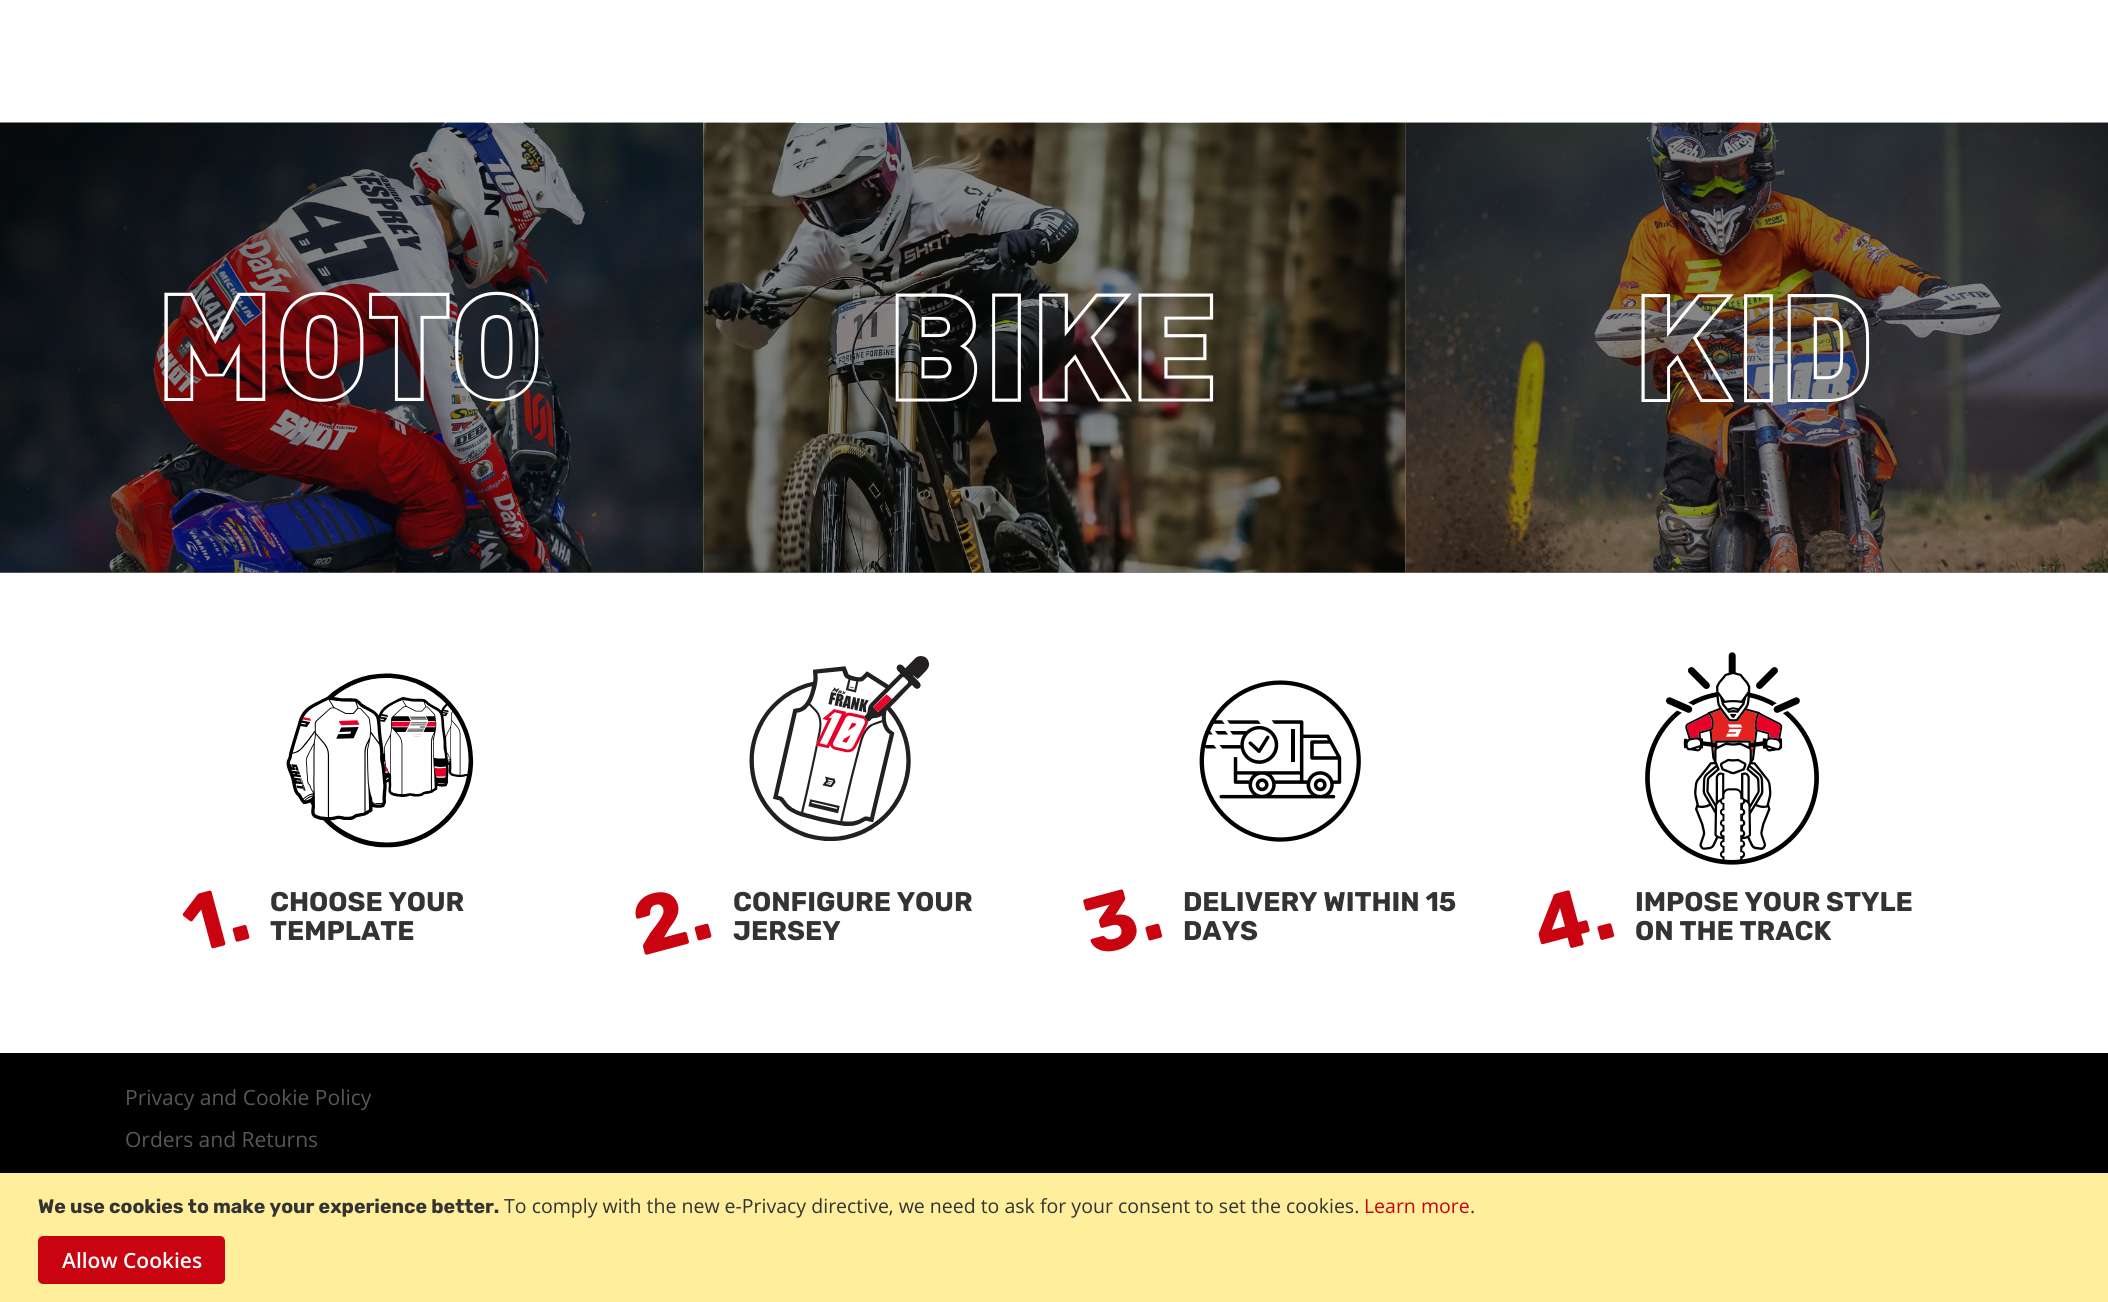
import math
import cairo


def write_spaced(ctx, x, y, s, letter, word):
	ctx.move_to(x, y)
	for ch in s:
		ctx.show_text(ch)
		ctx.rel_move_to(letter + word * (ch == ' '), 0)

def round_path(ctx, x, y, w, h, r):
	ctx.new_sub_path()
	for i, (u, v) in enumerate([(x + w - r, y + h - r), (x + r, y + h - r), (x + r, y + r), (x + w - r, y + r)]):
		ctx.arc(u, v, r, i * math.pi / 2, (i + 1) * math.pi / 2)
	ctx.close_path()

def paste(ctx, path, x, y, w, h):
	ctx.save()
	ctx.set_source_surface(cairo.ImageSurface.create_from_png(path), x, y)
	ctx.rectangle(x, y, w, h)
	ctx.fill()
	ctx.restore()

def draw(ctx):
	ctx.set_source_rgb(1, 1, 1)
	ctx.paint()
	ctx.set_source_rgb(0.522, 0.525, 0.525)
	ctx.rectangle(1406, 572, 702, 1)
	ctx.fill()
	ctx.rectangle(0, 123, 1406, 450)
	ctx.fill()
	paste(ctx, 'media/1.png', 0, 122, 704, 451)
	paste(ctx, 'media/2.png', 164, 291, 375, 111)
	paste(ctx, 'media/3.png', 703, 122, 703, 451)
	paste(ctx, 'media/4.png', 895, 293, 319, 109)
	paste(ctx, 'media/5.png', 1405, 122, 703, 451)
	paste(ctx, 'media/6.png', 1641, 294, 229, 109)
	paste(ctx, 'media/7.png', 286, 673, 188, 175)
	ctx.select_font_face('Rubik', cairo.FONT_SLANT_NORMAL, cairo.FONT_WEIGHT_BOLD)
	ctx.set_font_size(81)
	ctx.set_source_rgb(0.792, 0.012, 0.063)
	ctx.save()
	ctx.translate(192, 954)
	ctx.rotate(-15 * math.pi / 180)
	write_spaced(ctx, 0, 0, '1.', 1, 0)
	ctx.restore()
	ctx.set_font_size(27)
	ctx.set_source_rgb(0.2, 0.2, 0.2)
	ctx.move_to(270, 911)
	ctx.show_text('CHOOSE YOUR')
	ctx.move_to(270, 940)
	ctx.show_text('TEMPLATE')
	paste(ctx, 'media/8.png', 749, 656, 181, 185)
	ctx.set_font_size(81)
	ctx.set_source_rgb(0.792, 0.012, 0.063)
	ctx.save()
	ctx.translate(642, 956)
	ctx.rotate(-15 * math.pi / 180)
	write_spaced(ctx, 0, 0, '2.', 1, 0)
	ctx.restore()
	ctx.set_font_size(27)
	ctx.set_source_rgb(0.2, 0.2, 0.2)
	ctx.move_to(733, 911)
	ctx.show_text('CONFIGURE YOUR')
	ctx.move_to(733, 940)
	ctx.show_text('JERSEY')
	paste(ctx, 'media/9.png', 1199, 680, 162, 162)
	ctx.set_font_size(81)
	ctx.set_source_rgb(0.792, 0.012, 0.063)
	ctx.save()
	ctx.translate(1092, 956)
	ctx.rotate(-15 * math.pi / 180)
	write_spaced(ctx, 0, 0, '3.', 1, 0)
	ctx.restore()
	ctx.set_font_size(27)
	ctx.set_source_rgb(0.2, 0.2, 0.2)
	ctx.move_to(1183, 911)
	ctx.show_text('DELIVERY WITHIN 15')
	ctx.move_to(1183, 940)
	ctx.show_text('DAYS')
	paste(ctx, 'media/10.png', 1645, 652, 174, 213)
	ctx.set_font_size(81)
	ctx.set_source_rgb(0.792, 0.012, 0.063)
	ctx.save()
	ctx.translate(1542, 956)
	ctx.rotate(-15 * math.pi / 180)
	write_spaced(ctx, 0, 0, '4.', 1, 0)
	ctx.restore()
	ctx.set_font_size(27)
	ctx.set_source_rgb(0.2, 0.2, 0.2)
	ctx.move_to(1635, 911)
	ctx.show_text('IMPOSE YOUR STYLE')
	ctx.move_to(1635, 940)
	ctx.show_text('ON THE TRACK')
	ctx.set_source_rgb(0, 0, 0)
	ctx.rectangle(0, 1053, 2108, 120)
	ctx.fill()
	ctx.select_font_face('Open Sans')
	ctx.set_font_size(21)
	ctx.set_source_rgb(0.341, 0.341, 0.341)
	ctx.move_to(125, 1105)
	ctx.show_text('Privacy and Cookie Policy')
	ctx.move_to(125, 1147)
	ctx.show_text('Orders and Returns')
	ctx.set_source_rgb(1, 0.933, 0.612)
	ctx.rectangle(0, 1173, 2108, 129)
	ctx.fill()
	ctx.select_font_face('Rubik', cairo.FONT_SLANT_NORMAL, cairo.FONT_WEIGHT_BOLD)
	ctx.set_font_size(19.5)
	ctx.set_source_rgb(0.2, 0.2, 0.2)
	ctx.move_to(38, 1213)
	ctx.show_text('We use cookies to make your experience better.')
	ctx.select_font_face('Open Sans')
	ctx.move_to(504, 1213)
	ctx.show_text('To comply with the new e-Privacy directive, we need to ask for your consent to set the cookies.')
	ctx.set_source_rgb(0.792, 0.012, 0.063)
	ctx.move_to(1364, 1213)
	ctx.show_text('Learn more')
	ctx.set_source_rgb(0.2, 0.2, 0.2)
	ctx.move_to(1470, 1213)
	ctx.show_text('.')
	ctx.set_source_rgb(0.792, 0.012, 0.063)
	round_path(ctx, 39, 1237, 185, 46, 4)
	ctx.fill_preserve()
	ctx.stroke()
	ctx.select_font_face('Open Sans SemiBold')
	ctx.set_font_size(21)
	ctx.set_source_rgb(1, 1, 1)
	ctx.move_to(62, 1268)
	ctx.show_text('Allow Cookies')


surface = cairo.ImageSurface(cairo.FORMAT_RGB24, 2108, 1302)
ctx = cairo.Context(surface)
options = cairo.FontOptions()
options.set_hint_metrics(cairo.HINT_METRICS_OFF)
options.set_hint_style(cairo.HINT_STYLE_NONE)
ctx.set_font_options(options)
ctx.set_miter_limit(4)
draw(ctx)
surface.write_to_png('image.png')
